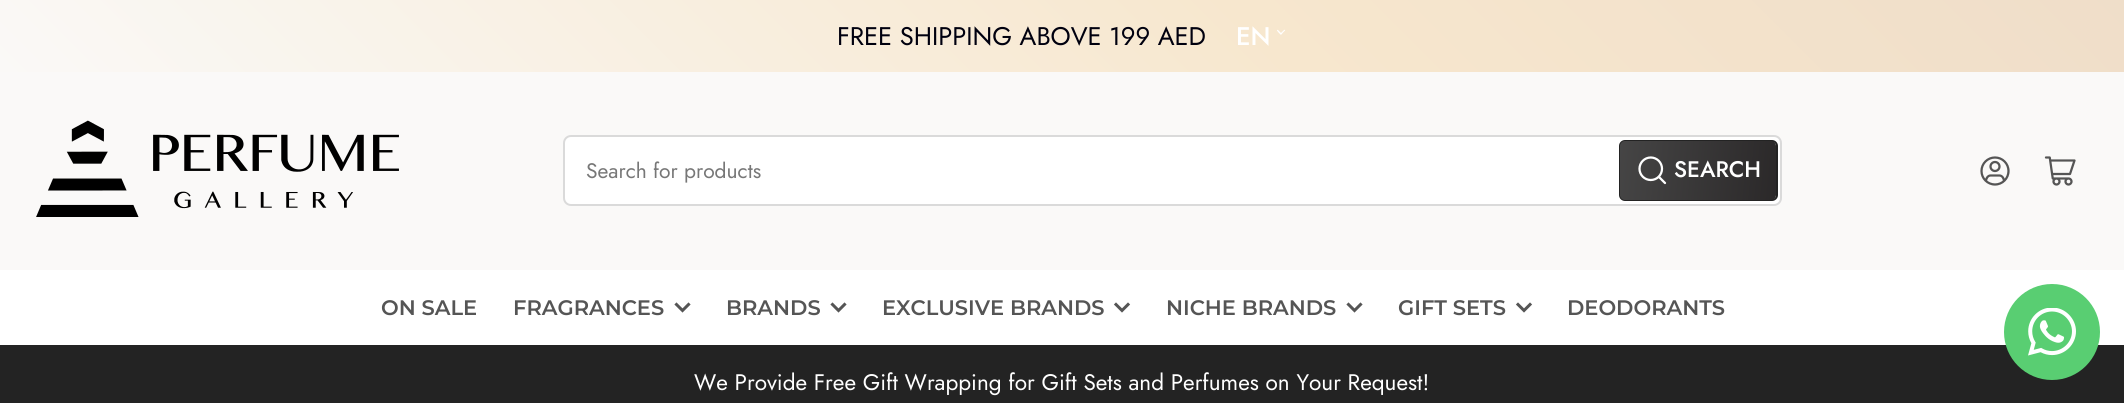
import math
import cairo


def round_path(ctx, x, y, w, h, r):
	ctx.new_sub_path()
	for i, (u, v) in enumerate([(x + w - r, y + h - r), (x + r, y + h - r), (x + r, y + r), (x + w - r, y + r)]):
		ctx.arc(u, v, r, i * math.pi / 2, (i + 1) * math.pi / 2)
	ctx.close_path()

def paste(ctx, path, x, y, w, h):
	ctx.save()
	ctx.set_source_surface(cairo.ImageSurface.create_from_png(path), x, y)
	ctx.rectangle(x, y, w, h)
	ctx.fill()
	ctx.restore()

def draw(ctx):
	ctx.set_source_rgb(1, 1, 1)
	ctx.paint()
	gradient = cairo.LinearGradient(1044, 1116, 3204, -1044)
	gradient.add_color_stop_rgba(0, 0.98, 0.976, 0.969, 1)
	gradient.add_color_stop_rgba(0.3, 0.969, 0.906, 0.808, 1)
	gradient.add_color_stop_rgba(0.7, 0.91, 0.835, 0.769, 1)
	gradient.add_color_stop_rgba(1, 0.831, 0.769, 0.69, 1)
	ctx.set_source(gradient)
	ctx.rectangle(0, 0, 2124, 72)
	ctx.fill()
	ctx.select_font_face('Jost')
	ctx.set_font_size(25.5)
	ctx.set_source_rgb(0, 0, 0.059)
	ctx.move_to(837, 45)
	ctx.show_text('FREE SHIPPING ABOVE 199 AED')
	ctx.select_font_face('Jost Medium')
	ctx.set_source_rgb(1, 1, 1)
	ctx.move_to(1236, 45)
	ctx.show_text('EN')
	ctx.new_path()
	ctx.move_to(1278, 30)
	ctx.line_to(1281, 33)
	ctx.curve_to(1281.5, 33.5, 1281.5, 35, 1280.5, 34.5)
	ctx.line_to(1278, 32)
	ctx.curve_to(1278, 31.5, 1277, 31, 1277, 30.5)
	ctx.curve_to(1277, 30, 1277.5, 29.5, 1278, 30)
	ctx.close_path()
	ctx.fill()
	ctx.new_path()
	ctx.move_to(1280.5, 33.5)
	ctx.line_to(1283.5, 30.5)
	ctx.curve_to(1284.5, 29.5, 1285.5, 29.5, 1285, 30.5)
	ctx.line_to(1282.5, 33)
	ctx.curve_to(1282.5, 33.5, 1281.5, 34.5, 1281, 34.5)
	ctx.curve_to(1280.5, 34.5, 1280.5, 33.5, 1280.5, 33.5)
	ctx.close_path()
	ctx.fill()
	ctx.set_source_rgb(0.98, 0.976, 0.969)
	ctx.rectangle(0, 72, 2124, 198)
	ctx.fill()
	paste(ctx, 'media/1.png', 36, 120, 363, 97)
	ctx.set_source_rgb(1, 1, 1)
	round_path(ctx, 564, 136, 1217, 69, 7)
	ctx.fill_preserve()
	ctx.set_source_rgb(0.855, 0.855, 0.855)
	ctx.stroke()
	ctx.select_font_face('Jost')
	ctx.set_font_size(21)
	ctx.set_source_rgb(0.467, 0.467, 0.467)
	ctx.move_to(586, 178)
	ctx.show_text('Search for products')
	round_path(ctx, 1620, 141, 157, 59, 5)
	ctx.set_source_rgb(0.137, 0.137, 0.137)
	ctx.stroke()
	gradient = cairo.LinearGradient(1832, 184, 1555, 156)
	gradient.add_color_stop_rgba(0, 0.133, 0.122, 0.125, 1)
	gradient.add_color_stop_rgba(1, 0.314, 0.314, 0.314, 1)
	ctx.set_source(gradient)
	round_path(ctx, 1620, 141, 156, 59, 5)
	ctx.fill()
	paste(ctx, 'media/2.png', 1638, 156, 29, 29)
	ctx.select_font_face('Jost Medium')
	ctx.set_font_size(22.5)
	ctx.set_source_rgb(1, 1, 1)
	ctx.move_to(1674, 177)
	ctx.show_text('SEARCH')
	paste(ctx, 'media/3.png', 1980, 156, 30, 30)
	paste(ctx, 'media/4.png', 2044, 156, 32, 30)
	ctx.select_font_face('Montserrat SemiBold')
	ctx.set_font_size(21)
	ctx.set_source_rgb(0.333, 0.333, 0.333)
	ctx.move_to(381, 315)
	ctx.show_text('ON SALE')
	ctx.move_to(513, 315)
	ctx.show_text('FRAGRANCES')
	ctx.new_path()
	ctx.move_to(688.5, 304.5)
	ctx.line_to(682.5, 310.5)
	ctx.line_to(676.5, 304.5)
	ctx.set_line_width(3)
	ctx.set_line_cap(cairo.LINE_CAP_SQUARE)
	ctx.stroke()
	ctx.move_to(726, 315)
	ctx.show_text('BRANDS')
	ctx.new_path()
	ctx.move_to(844.5, 304.5)
	ctx.line_to(838.5, 310.5)
	ctx.line_to(832.5, 304.5)
	ctx.stroke()
	ctx.move_to(882, 315)
	ctx.show_text('EXCLUSIVE BRANDS')
	ctx.new_path()
	ctx.move_to(1128, 304.5)
	ctx.line_to(1122, 310.5)
	ctx.line_to(1116, 304.5)
	ctx.stroke()
	ctx.move_to(1166, 315)
	ctx.show_text('NICHE BRANDS')
	ctx.new_path()
	ctx.move_to(1360.5, 304.5)
	ctx.line_to(1354.5, 310.5)
	ctx.line_to(1348.5, 304.5)
	ctx.stroke()
	ctx.move_to(1398, 315)
	ctx.show_text('GIFT SETS')
	ctx.new_path()
	ctx.move_to(1530, 304.5)
	ctx.line_to(1524, 310.5)
	ctx.line_to(1518, 304.5)
	ctx.stroke()
	ctx.move_to(1567, 315)
	ctx.show_text('DEODORANTS')
	ctx.set_source_rgb(0.137, 0.137, 0.137)
	ctx.rectangle(0, 345, 2124, 58)
	ctx.fill()
	ctx.set_source_rgb(0.349, 0.808, 0.447)
	ctx.arc(2052, 332, 48, 0, 2 * math.pi)
	ctx.fill()
	paste(ctx, 'media/5.png', 2028, 308, 48, 48)
	ctx.select_font_face('Jost')
	ctx.set_font_size(22.5)
	ctx.set_source_rgb(1, 1, 1)
	ctx.move_to(694, 390)
	ctx.show_text('We Provide Free Gift Wrapping for Gift Sets and Perfumes on Your Request!')


surface = cairo.ImageSurface(cairo.FORMAT_RGB24, 2124, 403)
ctx = cairo.Context(surface)
options = cairo.FontOptions()
options.set_hint_metrics(cairo.HINT_METRICS_OFF)
options.set_hint_style(cairo.HINT_STYLE_NONE)
ctx.set_font_options(options)
ctx.set_miter_limit(4)
draw(ctx)
surface.write_to_png('image.png')
